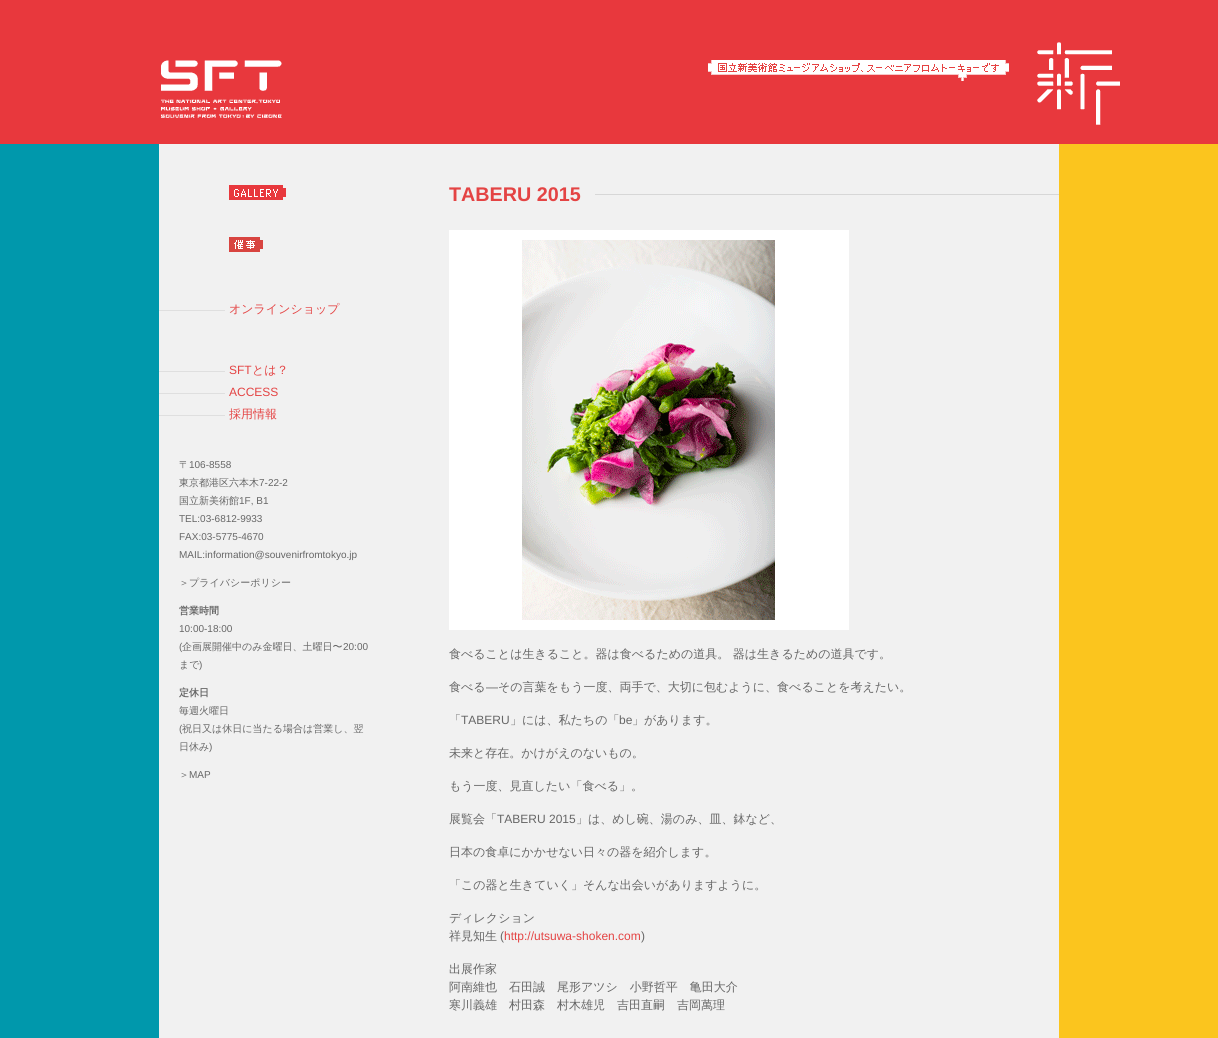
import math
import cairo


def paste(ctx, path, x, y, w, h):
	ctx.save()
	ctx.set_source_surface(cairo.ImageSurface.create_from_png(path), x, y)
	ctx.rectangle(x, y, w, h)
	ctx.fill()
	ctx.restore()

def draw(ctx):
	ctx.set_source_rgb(0, 0.596, 0.675)
	ctx.paint()
	ctx.set_source_rgb(0.984, 0.773, 0.118)
	ctx.new_path()
	ctx.move_to(1121, 0)
	ctx.line_to(1121, 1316)
	ctx.line_to(1059, 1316)
	ctx.line_to(1059, 135)
	ctx.close_path()
	ctx.fill()
	ctx.set_source_rgb(0.91, 0.22, 0.239)
	ctx.rectangle(0, 0, 1218, 144)
	ctx.fill()
	paste(ctx, 'media/1.png', 161, 60, 121, 58)
	paste(ctx, 'media/2.png', 708, 42, 412, 83)
	ctx.set_source_rgb(0.945, 0.945, 0.945)
	ctx.rectangle(159, 144, 900, 894)
	ctx.fill()
	paste(ctx, 'media/3.png', 229, 185, 57, 15)
	paste(ctx, 'media/4.png', 229, 237, 34, 15)
	ctx.set_source_rgb(0.875, 0.875, 0.875)
	ctx.rectangle(159, 310, 66, 1)
	ctx.fill()
	ctx.select_font_face('WenQuanYi Zen Hei Medium')
	ctx.set_font_size(12)
	ctx.set_source_rgb(0.894, 0.267, 0.267)
	ctx.move_to(229, 313)
	ctx.show_text('オンラインショップ')
	ctx.set_source_rgb(0.875, 0.875, 0.875)
	ctx.rectangle(159, 371, 66, 1)
	ctx.fill()
	ctx.select_font_face('Liberation Sans')
	ctx.set_source_rgb(0.894, 0.267, 0.267)
	ctx.move_to(229, 374)
	ctx.show_text('SFT')
	ctx.select_font_face('WenQuanYi Zen Hei Medium')
	ctx.move_to(252, 374)
	ctx.show_text('とは？')
	ctx.set_source_rgb(0.875, 0.875, 0.875)
	ctx.rectangle(159, 393, 66, 1)
	ctx.fill()
	ctx.select_font_face('Liberation Sans')
	ctx.set_source_rgb(0.894, 0.267, 0.267)
	ctx.move_to(229, 396)
	ctx.show_text('ACCESS')
	ctx.set_source_rgb(0.875, 0.875, 0.875)
	ctx.rectangle(159, 415, 66, 1)
	ctx.fill()
	ctx.select_font_face('WenQuanYi Zen Hei Medium')
	ctx.set_source_rgb(0.894, 0.267, 0.267)
	ctx.move_to(229, 418)
	ctx.show_text('採用情報')
	ctx.set_font_size(10)
	ctx.set_source_rgb(0.4, 0.4, 0.4)
	ctx.move_to(179, 468)
	ctx.show_text('〒')
	ctx.select_font_face('Liberation Sans')
	ctx.move_to(189, 468)
	ctx.show_text('106-8558')
	ctx.select_font_face('WenQuanYi Zen Hei Medium')
	ctx.move_to(179, 486)
	ctx.show_text('東京都港区六本木')
	ctx.select_font_face('Liberation Sans')
	ctx.move_to(259, 486)
	ctx.show_text('7-22-2')
	ctx.select_font_face('WenQuanYi Zen Hei Medium')
	ctx.move_to(179, 504)
	ctx.show_text('国立新美術館')
	ctx.select_font_face('Liberation Sans')
	for x, y, s in [
		(239, 504, '1F, B1'),
		(179, 522, 'TEL:03-6812-9933'),
		(179, 540, 'FAX:03-5775-4670'),
		(179, 558, 'MAIL:information@souvenirfromtokyo.jp'),
	]:
		ctx.move_to(x, y)
		ctx.show_text(s)
	ctx.select_font_face('WenQuanYi Zen Hei Medium')
	ctx.move_to(179, 586)
	ctx.show_text('＞プライバシーポリシー')
	ctx.select_font_face('WenQuanYi Zen Hei', cairo.FONT_SLANT_NORMAL, cairo.FONT_WEIGHT_BOLD)
	ctx.move_to(179, 614)
	ctx.show_text('営業時間')
	ctx.select_font_face('Liberation Sans')
	ctx.move_to(179, 632)
	ctx.show_text('10:00-18:00')
	ctx.move_to(179, 650)
	ctx.show_text('(')
	ctx.select_font_face('WenQuanYi Zen Hei Medium')
	ctx.move_to(182, 650)
	ctx.show_text('企画展開催中のみ金曜日、土曜日〜')
	ctx.select_font_face('Liberation Sans')
	ctx.move_to(343, 650)
	ctx.show_text('20:00')
	ctx.select_font_face('WenQuanYi Zen Hei Medium')
	ctx.move_to(179, 668)
	ctx.show_text('まで')
	ctx.select_font_face('Liberation Sans')
	ctx.move_to(199, 668)
	ctx.show_text(')')
	ctx.select_font_face('WenQuanYi Zen Hei', cairo.FONT_SLANT_NORMAL, cairo.FONT_WEIGHT_BOLD)
	ctx.move_to(179, 696)
	ctx.show_text('定休日')
	ctx.select_font_face('WenQuanYi Zen Hei Medium')
	ctx.move_to(179, 714)
	ctx.show_text('毎週火曜日')
	ctx.select_font_face('Liberation Sans')
	ctx.move_to(179, 732)
	ctx.show_text('(')
	ctx.select_font_face('WenQuanYi Zen Hei Medium')
	ctx.move_to(182, 732)
	ctx.show_text('祝日又は休日に当たる場合は営業し、翌')
	ctx.move_to(179, 750)
	ctx.show_text('日休み')
	ctx.select_font_face('Liberation Sans')
	ctx.move_to(209, 750)
	ctx.show_text(')')
	ctx.select_font_face('WenQuanYi Zen Hei Medium')
	ctx.move_to(179, 778)
	ctx.show_text('＞')
	ctx.select_font_face('Liberation Sans')
	ctx.move_to(189, 778)
	ctx.show_text('MAP')
	ctx.set_source_rgb(0.843, 0.843, 0.843)
	ctx.rectangle(595, 194, 464, 1)
	ctx.fill()
	ctx.select_font_face('Liberation Sans', cairo.FONT_SLANT_NORMAL, cairo.FONT_WEIGHT_BOLD)
	ctx.set_font_size(19.75)
	ctx.set_source_rgb(0.894, 0.267, 0.267)
	ctx.move_to(449, 201)
	ctx.show_text('TABERU 2015')
	paste(ctx, 'media/5.png', 449, 230, 400, 400)
	ctx.select_font_face('WenQuanYi Zen Hei Medium')
	ctx.set_font_size(12)
	ctx.set_source_rgb(0.4, 0.4, 0.4)
	ctx.move_to(449, 658)
	ctx.show_text('食べることは生きること。器は食べるための道具。 器は生きるための道具です。')
	ctx.move_to(449, 691)
	ctx.show_text('食べる')
	ctx.select_font_face('Liberation Sans')
	ctx.move_to(486, 691)
	ctx.show_text('―')
	ctx.select_font_face('WenQuanYi Zen Hei Medium')
	ctx.move_to(498, 691)
	ctx.show_text('その言葉をもう一度、両手で、大切に包むように、食べることを考えたい。')
	ctx.move_to(449, 724)
	ctx.show_text('「')
	ctx.select_font_face('Liberation Sans')
	ctx.move_to(461, 724)
	ctx.show_text('TABERU')
	ctx.select_font_face('WenQuanYi Zen Hei Medium')
	ctx.move_to(510, 724)
	ctx.show_text('」には、私たちの「')
	ctx.select_font_face('Liberation Sans')
	ctx.move_to(619, 724)
	ctx.show_text('be')
	ctx.select_font_face('WenQuanYi Zen Hei Medium')
	for x, y, s in [
		(632, 724, '」があります。'),
		(449, 757, '未来と存在。かけがえのないもの。'),
		(449, 790, 'もう一度、見直したい「食べる」。'),
		(449, 823, '展覧会「'),
	]:
		ctx.move_to(x, y)
		ctx.show_text(s)
	ctx.select_font_face('Liberation Sans')
	ctx.move_to(497, 823)
	ctx.show_text('TABERU 2015')
	ctx.select_font_face('WenQuanYi Zen Hei Medium')
	for x, y, s in [
		(576, 823, '」は、めし碗、湯のみ、皿、鉢など、'),
		(449, 856, '日本の食卓にかかせない日々の器を紹介します。'),
		(449, 889, '「この器と生きていく」そんな出会いがありますように。'),
		(449, 922, 'ディレクション'),
		(449, 940, '祥見知生'),
	]:
		ctx.move_to(x, y)
		ctx.show_text(s)
	ctx.select_font_face('Liberation Sans')
	ctx.move_to(500, 940)
	ctx.show_text('(')
	ctx.set_source_rgb(0.894, 0.267, 0.267)
	ctx.move_to(504, 940)
	ctx.show_text('http://utsuwa-shoken.com')
	ctx.set_source_rgb(0.4, 0.4, 0.4)
	ctx.move_to(641, 940)
	ctx.show_text(')')
	ctx.select_font_face('WenQuanYi Zen Hei Medium')
	for x, y, s in [
		(449, 973, '出展作家'),
		(449, 991, '阿南維也　石田誠　尾形アツシ　小野哲平　亀田大介'),
		(449, 1009, '寒川義雄　村田森　村木雄児　吉田直嗣　吉岡萬理'),
	]:
		ctx.move_to(x, y)
		ctx.show_text(s)
	ctx.set_source_rgb(0.984, 0.773, 0.118)
	ctx.rectangle(1121, 144, 97, 894)
	ctx.fill()


surface = cairo.ImageSurface(cairo.FORMAT_RGB24, 1218, 1038)
ctx = cairo.Context(surface)
options = cairo.FontOptions()
options.set_hint_metrics(cairo.HINT_METRICS_OFF)
options.set_hint_style(cairo.HINT_STYLE_NONE)
ctx.set_font_options(options)
ctx.set_miter_limit(4)
draw(ctx)
surface.write_to_png('image.png')
